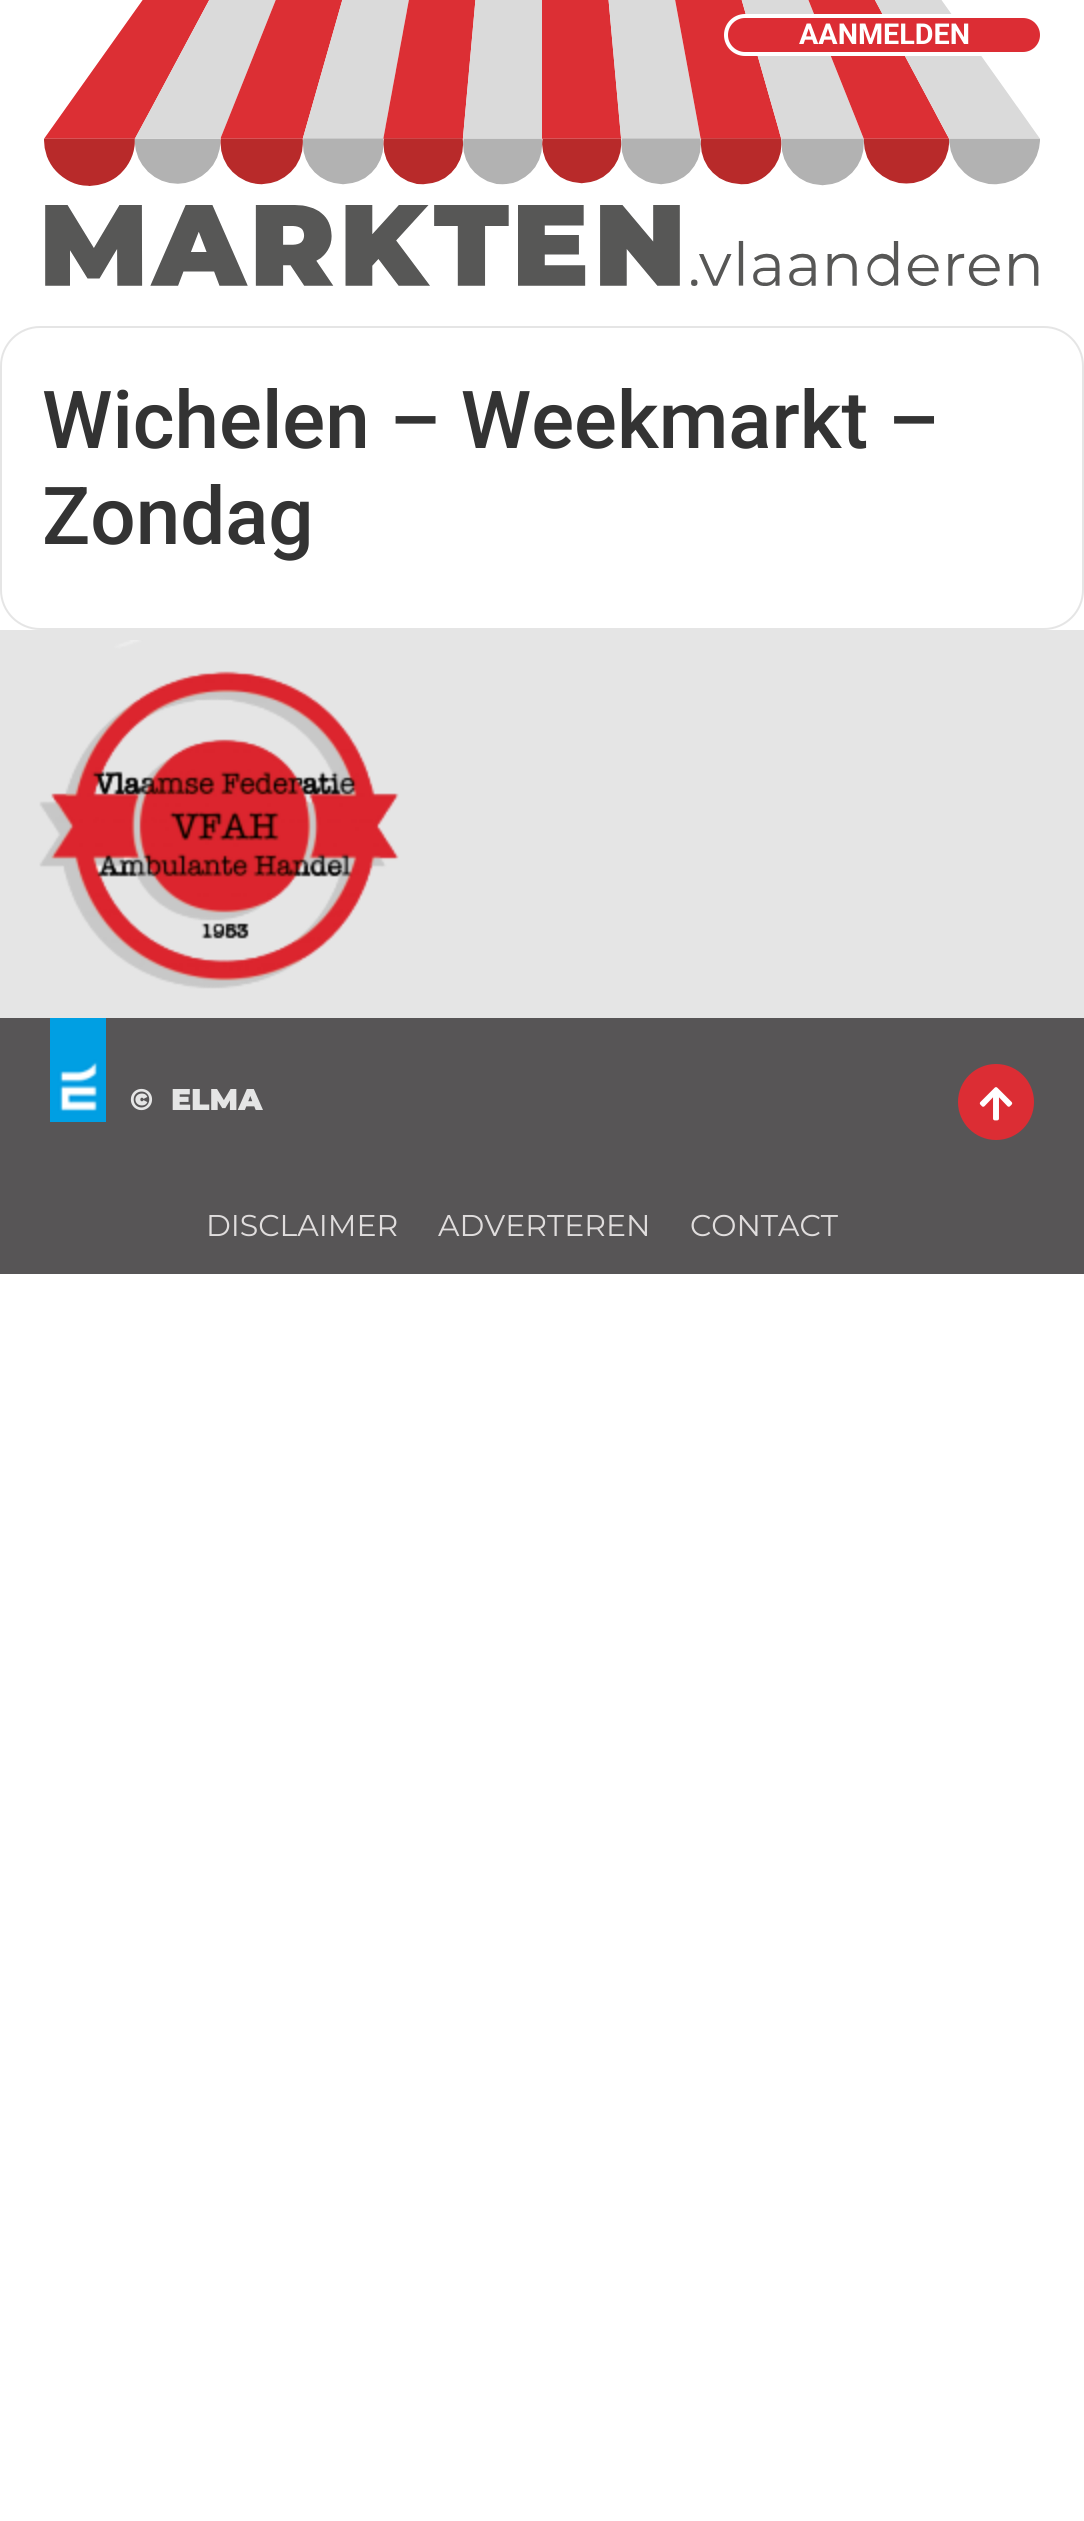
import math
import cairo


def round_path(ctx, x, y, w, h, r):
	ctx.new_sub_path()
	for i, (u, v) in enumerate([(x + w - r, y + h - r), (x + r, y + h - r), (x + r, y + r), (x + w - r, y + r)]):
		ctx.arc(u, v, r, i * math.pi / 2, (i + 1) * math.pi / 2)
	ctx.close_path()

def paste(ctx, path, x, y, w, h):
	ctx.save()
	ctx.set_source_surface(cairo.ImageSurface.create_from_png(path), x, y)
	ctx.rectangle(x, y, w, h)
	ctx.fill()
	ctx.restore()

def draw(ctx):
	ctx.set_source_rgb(1, 1, 1)
	ctx.paint()
	paste(ctx, 'media/1.png', 44, 0, 996, 286)
	ctx.set_source_rgb(0.863, 0.176, 0.204)
	round_path(ctx, 726, 16, 316, 38, 19)
	ctx.fill_preserve()
	ctx.set_source_rgb(1, 1, 1)
	ctx.set_line_width(4)
	ctx.stroke()
	ctx.select_font_face('Roboto', cairo.FONT_SLANT_NORMAL, cairo.FONT_WEIGHT_BOLD)
	ctx.set_font_size(28.75)
	ctx.move_to(799, 44)
	ctx.show_text('AANMELDEN')
	round_path(ctx, 1, 327, 1082, 302, 39)
	ctx.set_source_rgb(0.898, 0.898, 0.898)
	ctx.set_line_width(2)
	ctx.stroke()
	ctx.select_font_face('Roboto Medium')
	ctx.set_font_size(80)
	ctx.set_source_rgb(0.2, 0.2, 0.2)
	ctx.move_to(42, 448)
	ctx.show_text('Wichelen – Weekmarkt –')
	ctx.move_to(42, 544)
	ctx.show_text('Zondag')
	ctx.set_source_rgb(0.898, 0.898, 0.898)
	ctx.rectangle(0, 630, 1084, 388)
	ctx.fill()
	paste(ctx, 'media/2.png', 39, 640, 360, 349)
	ctx.set_source_rgb(0.341, 0.333, 0.337)
	ctx.rectangle(0, 1018, 1084, 256)
	ctx.fill()
	paste(ctx, 'media/3.png', 50, 1018, 56, 104)
	ctx.select_font_face('Montserrat Black')
	ctx.set_font_size(30)
	ctx.set_source_rgb(0.898, 0.898, 0.898)
	ctx.move_to(130, 1110)
	ctx.show_text('©  ELMA')
	ctx.set_source_rgb(0.863, 0.176, 0.204)
	ctx.new_path()
	ctx.arc(996, 1102, 38, 0, 2 * math.pi)
	ctx.fill()
	paste(ctx, 'media/4.png', 979, 1087, 34, 34)
	ctx.select_font_face('Montserrat')
	ctx.set_source_rgb(0.878, 0.867, 0.867)
	for x, y, s in [
		(206, 1236, 'DISCLAIMER'),
		(438, 1236, 'ADVERTEREN'),
		(690, 1236, 'CONTACT'),
	]:
		ctx.move_to(x, y)
		ctx.show_text(s)


surface = cairo.ImageSurface(cairo.FORMAT_RGB24, 1084, 2521)
ctx = cairo.Context(surface)
options = cairo.FontOptions()
options.set_hint_metrics(cairo.HINT_METRICS_OFF)
options.set_hint_style(cairo.HINT_STYLE_NONE)
ctx.set_font_options(options)
ctx.set_miter_limit(4)
draw(ctx)
surface.write_to_png('image.png')
